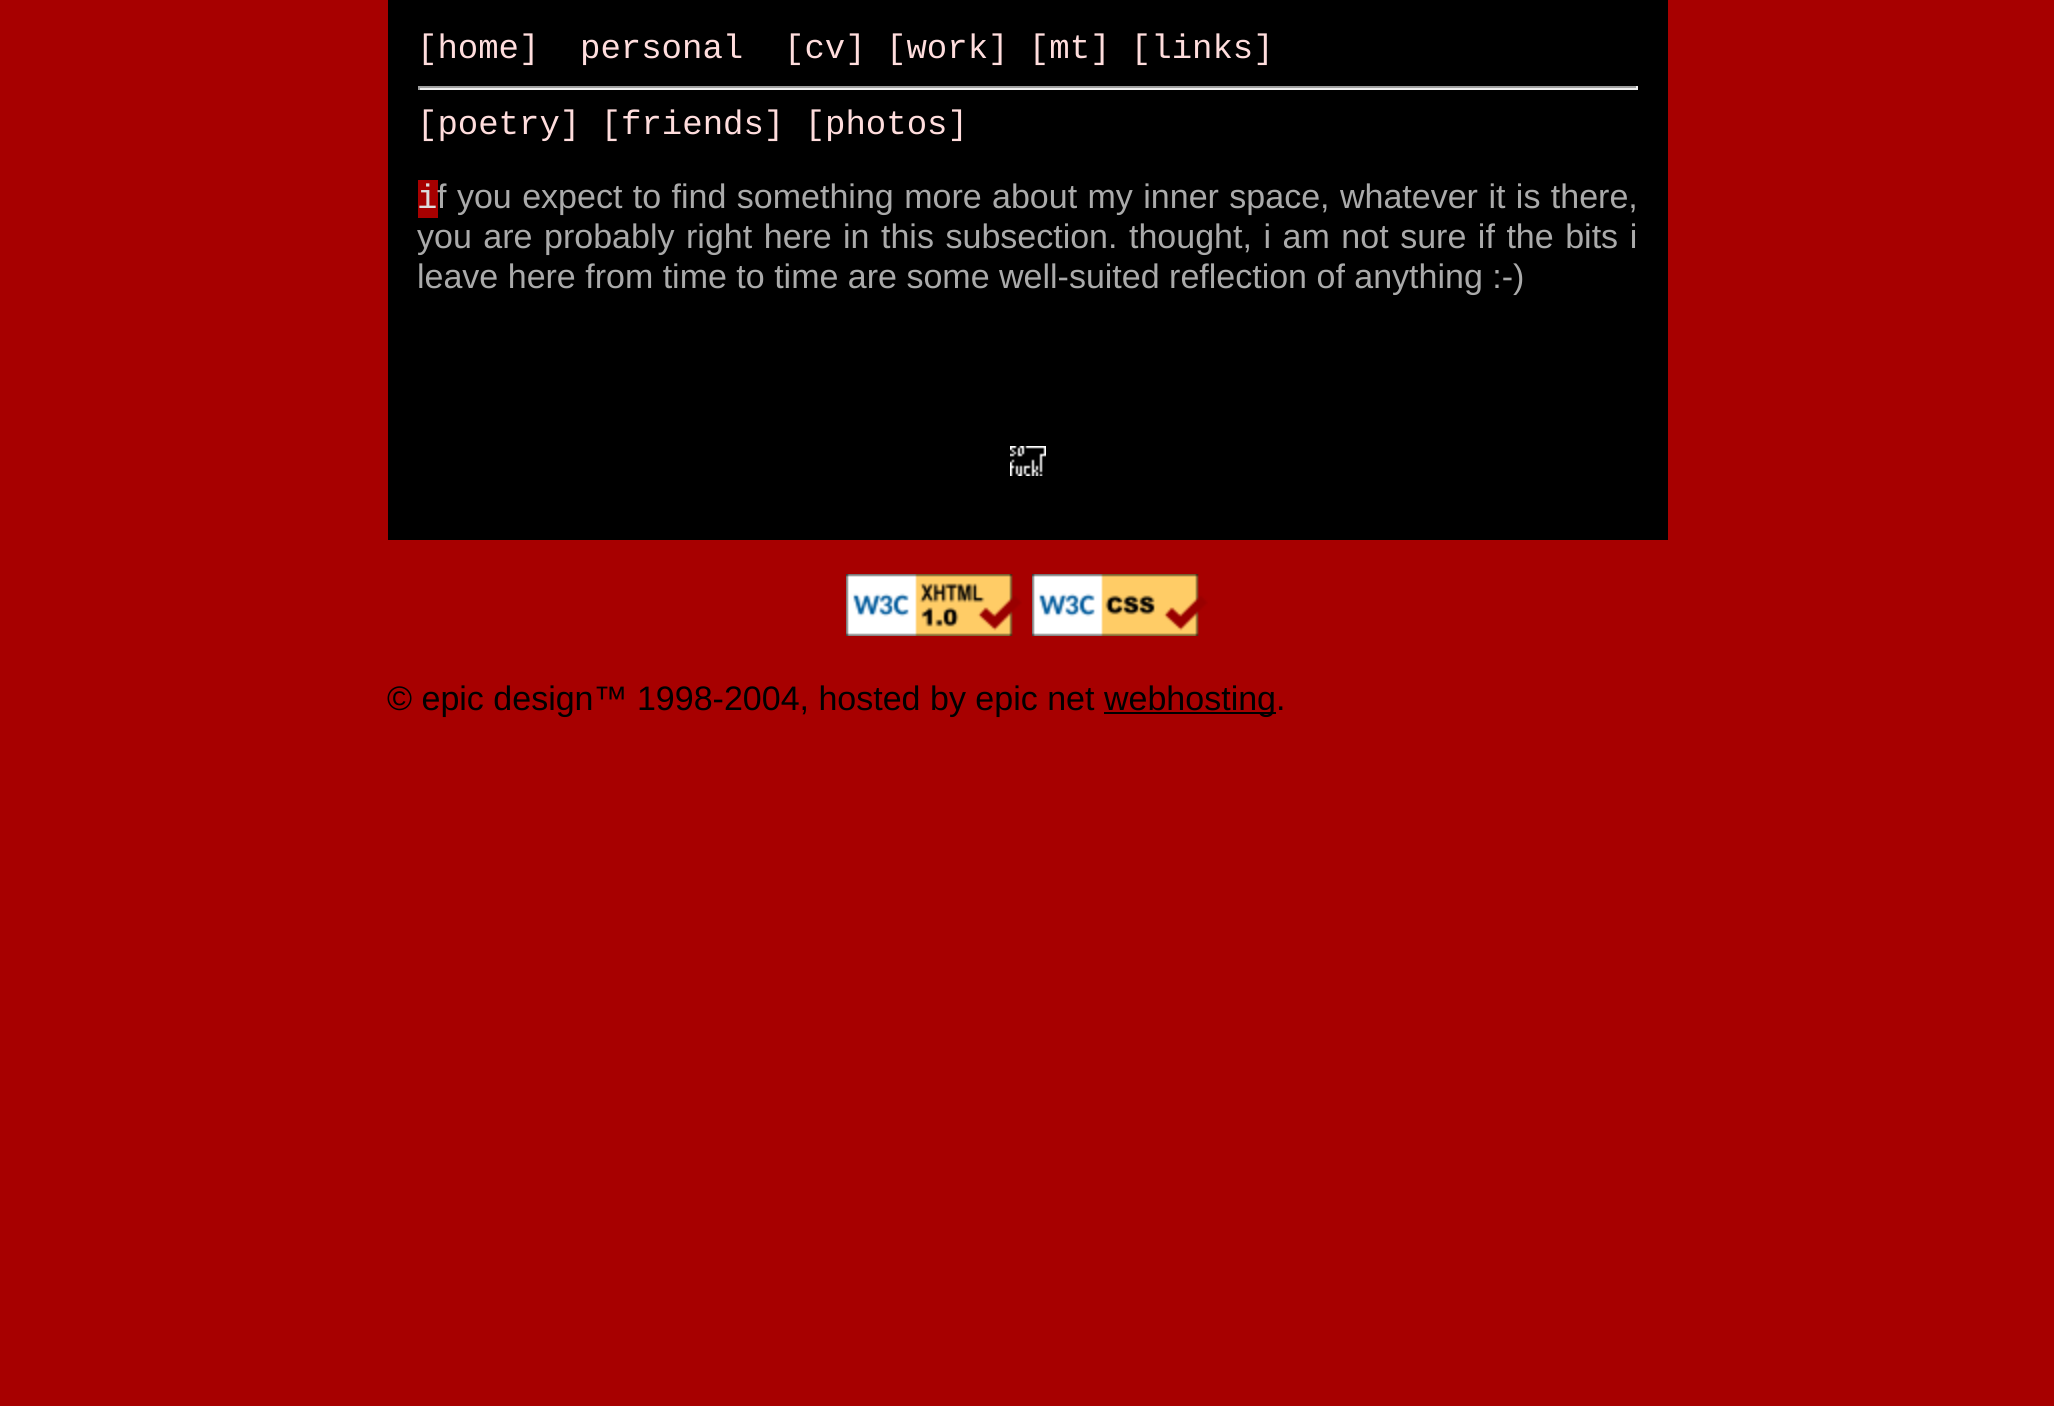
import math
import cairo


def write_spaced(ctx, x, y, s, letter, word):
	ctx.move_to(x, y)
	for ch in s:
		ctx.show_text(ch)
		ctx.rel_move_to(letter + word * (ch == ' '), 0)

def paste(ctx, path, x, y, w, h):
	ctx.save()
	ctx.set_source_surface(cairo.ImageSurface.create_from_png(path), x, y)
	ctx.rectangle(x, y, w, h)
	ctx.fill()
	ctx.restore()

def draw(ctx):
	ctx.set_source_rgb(0.655, 0, 0)
	ctx.paint()
	ctx.set_source_rgb(0, 0, 0)
	ctx.rectangle(388, 0, 1280, 540)
	ctx.fill()
	ctx.select_font_face('Liberation Mono')
	ctx.set_font_size(34)
	ctx.set_source_rgb(1, 0.867, 0.867)
	for x, y, s in [
		(417, 58, '[home]'),
		(580, 58, 'personal'),
		(784, 58, '[cv] [work] [mt] [links]'),
	]:
		ctx.move_to(x, y)
		ctx.show_text(s)
	ctx.set_source_rgb(0.624, 0.624, 0.624)
	ctx.rectangle(418, 86, 1220, 2)
	ctx.fill()
	ctx.set_source_rgb(0.933, 0.933, 0.933)
	ctx.rectangle(1636, 86, 2, 4)
	ctx.rectangle(418, 88, 1220, 2)
	ctx.fill()
	ctx.set_source_rgb(0.624, 0.624, 0.624)
	ctx.rectangle(418, 86, 2, 4)
	ctx.fill()
	ctx.set_source_rgb(1, 0.867, 0.867)
	ctx.move_to(417, 134)
	ctx.show_text('[poetry] [friends] [photos]')
	ctx.set_source_rgb(0.655, 0, 0)
	ctx.rectangle(418, 180, 20, 38)
	ctx.fill()
	ctx.set_source_rgb(0.867, 0.867, 0.867)
	ctx.move_to(417, 208)
	ctx.show_text('i')
	ctx.select_font_face('Liberation Sans')
	ctx.set_source_rgb(0.667, 0.667, 0.667)
	write_spaced(ctx, 437, 208, 'f you expect to find something more', 0, 1)
	write_spaced(ctx, 992, 208, 'about my inner space, whatever it is there,', 0, 1)
	write_spaced(ctx, 417, 248, 'you are probably right here', 0, 2.1)
	write_spaced(ctx, 843, 248, 'in this subsection. thought, i am not sure if the bits i', 0, 2.1)
	ctx.move_to(417, 288)
	ctx.show_text('leave here from time to time are some well-suited reflection of anything :-)')
	paste(ctx, 'media/1.png', 1010, 446, 36, 30)
	paste(ctx, 'media/2.png', 846, 574, 176, 62)
	paste(ctx, 'media/3.png', 1032, 574, 176, 62)
	ctx.set_source_rgb(0, 0, 0)
	ctx.move_to(387, 710)
	ctx.show_text('© epic design™ 1998-2004, hosted by epic net')
	ctx.rectangle(1104, 712, 172, 2)
	ctx.fill()
	ctx.move_to(1104, 710)
	ctx.show_text('webhosting.')


surface = cairo.ImageSurface(cairo.FORMAT_RGB24, 2054, 1406)
ctx = cairo.Context(surface)
options = cairo.FontOptions()
options.set_hint_metrics(cairo.HINT_METRICS_OFF)
options.set_hint_style(cairo.HINT_STYLE_NONE)
ctx.set_font_options(options)
ctx.set_miter_limit(4)
draw(ctx)
surface.write_to_png('image.png')
